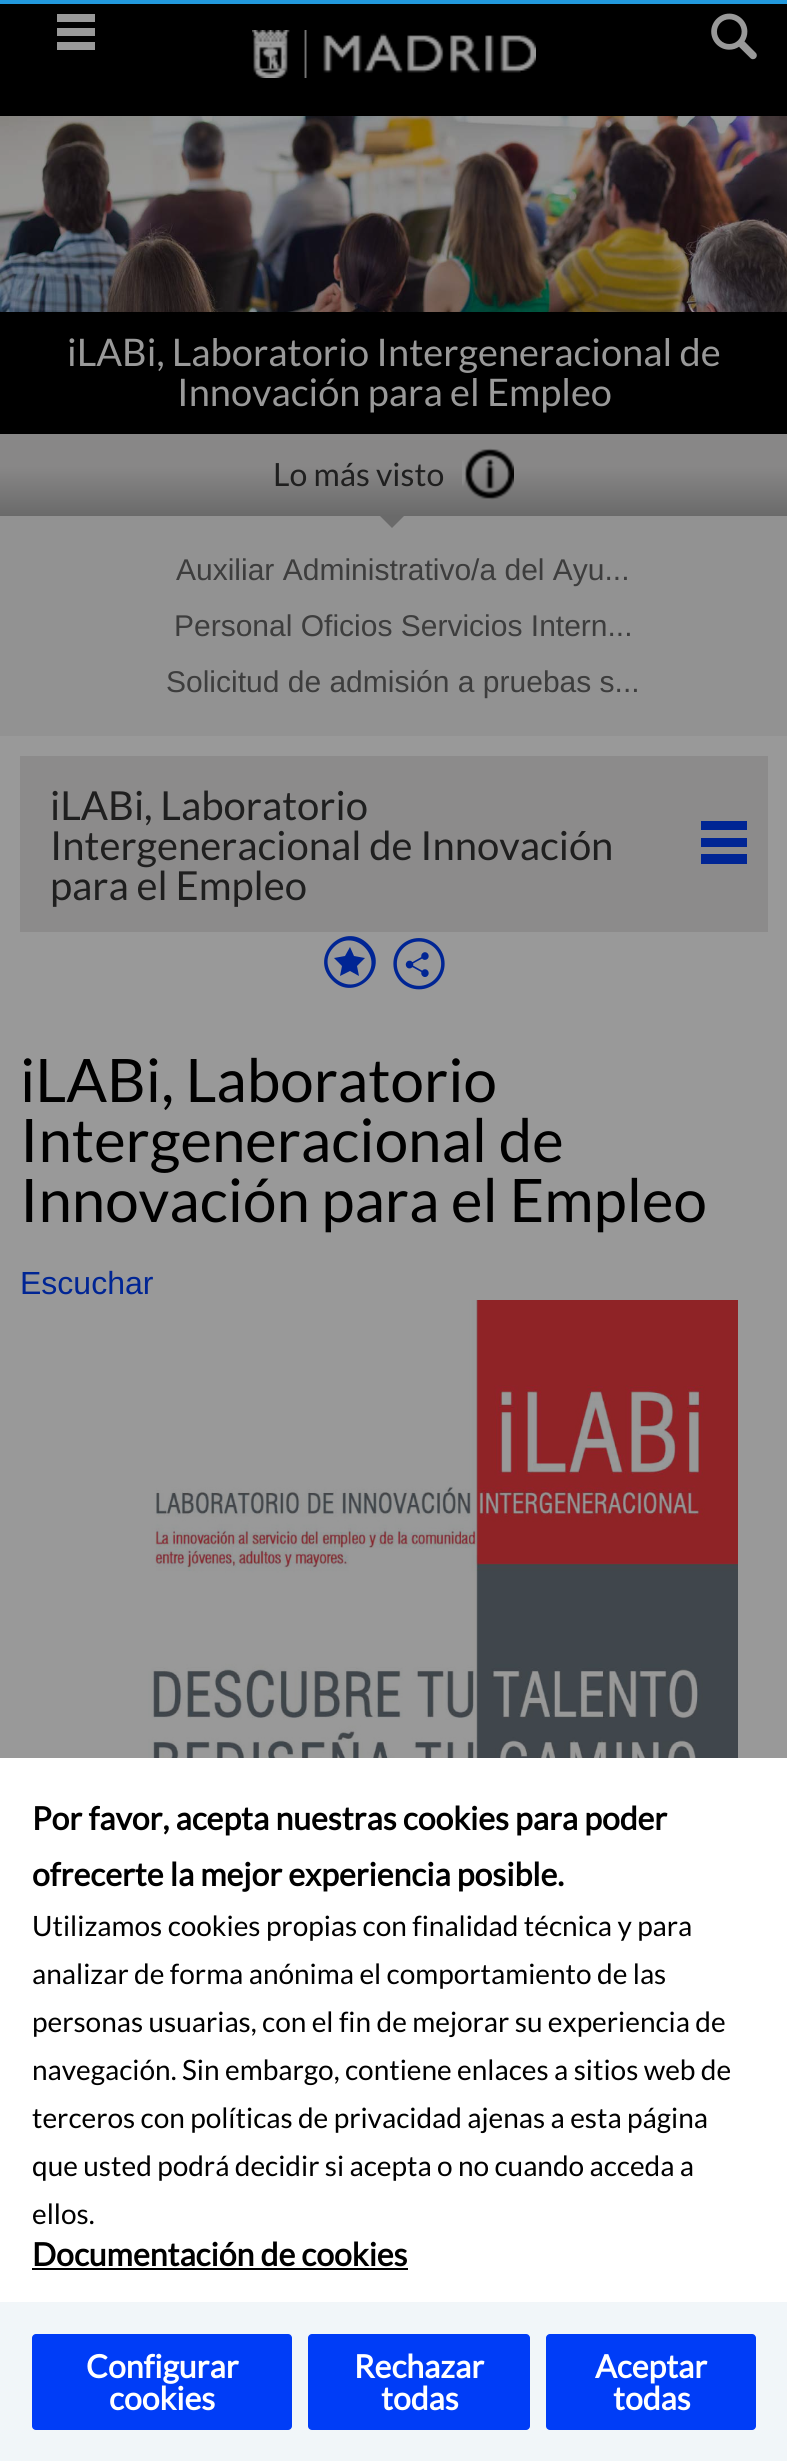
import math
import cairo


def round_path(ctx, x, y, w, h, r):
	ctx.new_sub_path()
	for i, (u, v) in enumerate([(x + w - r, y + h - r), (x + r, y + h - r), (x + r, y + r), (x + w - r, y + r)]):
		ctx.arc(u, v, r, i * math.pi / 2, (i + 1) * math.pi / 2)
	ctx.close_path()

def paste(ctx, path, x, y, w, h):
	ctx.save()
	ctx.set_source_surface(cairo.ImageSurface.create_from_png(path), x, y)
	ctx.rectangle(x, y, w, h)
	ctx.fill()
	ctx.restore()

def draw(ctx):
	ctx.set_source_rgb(0.6, 0.6, 0.6)
	ctx.paint()
	ctx.set_source_rgb(0.133, 0.6, 0.867)
	ctx.rectangle(0, 0, 787, 4)
	ctx.fill()
	ctx.set_source_rgb(0, 0, 0)
	ctx.rectangle(0, 4, 787, 112)
	ctx.fill()
	ctx.set_source_rgb(0.6, 0.6, 0.6)
	ctx.new_path()
	ctx.move_to(57, 14)
	ctx.line_to(57, 22)
	ctx.line_to(95, 22)
	ctx.line_to(95, 14)
	ctx.close_path()
	ctx.move_to(57, 36)
	ctx.line_to(95, 36)
	ctx.line_to(95, 28)
	ctx.line_to(57, 28)
	ctx.close_path()
	ctx.move_to(57, 50)
	ctx.line_to(95, 50)
	ctx.line_to(95, 42)
	ctx.line_to(57, 42)
	ctx.close_path()
	ctx.fill()
	paste(ctx, 'media/1.png', 252, 30, 284, 48)
	paste(ctx, 'media/2.png', 711, 13, 46, 47)
	paste(ctx, 'media/3.png', 0, 116, 787, 196)
	ctx.set_source_rgb(0, 0, 0)
	ctx.rectangle(0, 312, 787, 122)
	ctx.fill()
	ctx.select_font_face('Lato')
	ctx.set_font_size(38)
	ctx.set_source_rgb(0.6, 0.6, 0.6)
	ctx.move_to(67, 366)
	ctx.show_text('iLABi, Laboratorio Intergeneracional de')
	ctx.move_to(177, 406)
	ctx.show_text('Innovación para el Empleo')
	ctx.set_source_rgb(0.573, 0.573, 0.573)
	ctx.rectangle(0, 516, 787, 220)
	ctx.fill()
	gradient = cairo.LinearGradient(394, 434, 394, 516)
	gradient.add_color_stop_rgba(0, 0.533, 0.529, 0.529, 1)
	gradient.add_color_stop_rgba(0.4, 0.533, 0.529, 0.529, 1)
	gradient.add_color_stop_rgba(1, 0.416, 0.416, 0.416, 1)
	ctx.set_source(gradient)
	ctx.rectangle(0, 434, 787, 82)
	ctx.fill()
	ctx.set_font_size(32)
	ctx.set_source_rgb(0.122, 0.122, 0.122)
	ctx.move_to(273, 486)
	ctx.show_text('Lo más visto')
	paste(ctx, 'media/4.png', 462, 448, 52, 52)
	ctx.set_source_rgb(0.416, 0.416, 0.416)
	ctx.new_path()
	ctx.move_to(380, 516)
	ctx.line_to(404, 516)
	ctx.line_to(392, 528)
	ctx.close_path()
	ctx.fill()
	ctx.select_font_face('Liberation Sans')
	ctx.set_font_size(30)
	ctx.set_source_rgb(0.239, 0.239, 0.239)
	for x, y, s in [
		(176, 580, 'Auxiliar Administrativo/a del Ayu...'),
		(174, 636, 'Personal Oficios Servicios Intern...'),
		(166, 692, 'Solicitud de admisión a pruebas s...'),
	]:
		ctx.move_to(x, y)
		ctx.show_text(s)
	ctx.set_source_rgb(0.549, 0.545, 0.545)
	ctx.rectangle(20, 756, 748, 176)
	ctx.fill()
	ctx.select_font_face('Lato')
	ctx.set_font_size(40)
	ctx.set_source_rgb(0.122, 0.122, 0.122)
	ctx.move_to(50, 820)
	ctx.show_text('iLABi, Laboratorio')
	ctx.move_to(50, 860)
	ctx.show_text('Intergeneracional de Innovación')
	ctx.set_source_rgb(0, 0.145, 0.58)
	ctx.new_path()
	ctx.move_to(701, 821)
	ctx.line_to(701, 830)
	ctx.line_to(747, 830)
	ctx.line_to(747, 821)
	ctx.close_path()
	ctx.move_to(701, 847)
	ctx.line_to(747, 847)
	ctx.line_to(747, 838)
	ctx.line_to(701, 838)
	ctx.close_path()
	ctx.move_to(701, 864)
	ctx.line_to(747, 864)
	ctx.line_to(747, 854)
	ctx.line_to(701, 854)
	ctx.close_path()
	ctx.fill()
	ctx.set_source_rgb(0.122, 0.122, 0.122)
	ctx.move_to(50, 900)
	ctx.show_text('para el Empleo')
	ctx.set_source_rgb(0, 0.145, 0.58)
	ctx.new_path()
	ctx.move_to(334, 947)
	ctx.curve_to(354, 927, 385, 957, 365, 978)
	ctx.curve_to(345, 998, 314, 967, 334, 947)
	ctx.close_path()
	ctx.move_to(368, 944)
	ctx.curve_to(344, 920, 308, 956, 332, 980)
	ctx.curve_to(355, 1004, 392, 968, 368, 944)
	ctx.close_path()
	ctx.move_to(350, 947)
	ctx.line_to(354, 956)
	ctx.line_to(365, 958)
	ctx.line_to(357, 966)
	ctx.line_to(359, 976)
	ctx.line_to(350, 971)
	ctx.line_to(340, 976)
	ctx.line_to(342, 966)
	ctx.line_to(334, 958)
	ctx.line_to(345, 956)
	ctx.close_path()
	ctx.fill()
	paste(ctx, 'media/5.png', 393, 938, 52, 52)
	ctx.set_font_size(60)
	ctx.set_source_rgb(0, 0, 0)
	for x, y, s in [
		(20, 1102, 'iLABi, Laboratorio'),
		(20, 1162, 'Intergeneracional de'),
		(20, 1222, 'Innovación para el Empleo'),
	]:
		ctx.move_to(x, y)
		ctx.show_text(s)
	ctx.select_font_face('Liberation Sans')
	ctx.set_font_size(32)
	ctx.set_source_rgb(0, 0.145, 0.58)
	ctx.move_to(20, 1294)
	ctx.show_text('Escuchar')
	paste(ctx, 'media/6.png', 148, 1300, 590, 458)
	ctx.set_source_rgb(1, 1, 1)
	ctx.rectangle(0, 1758, 787, 544)
	ctx.fill()
	ctx.select_font_face('Lato', cairo.FONT_SLANT_NORMAL, cairo.FONT_WEIGHT_BOLD)
	ctx.set_source_rgb(0, 0, 0)
	ctx.move_to(32, 1830)
	ctx.show_text('Por favor, acepta nuestras cookies para poder')
	ctx.move_to(32, 1886)
	ctx.show_text('ofrecerte la mejor experiencia posible.')
	ctx.select_font_face('Lato')
	ctx.set_font_size(28)
	for x, y, s in [
		(32, 1936, 'Utilizamos cookies propias con finalidad técnica y para'),
		(32, 1984, 'analizar de forma anónima el comportamiento de las'),
		(32, 2032, 'personas usuarias, con el fin de mejorar su experiencia de'),
		(32, 2080, 'navegación. Sin embargo, contiene enlaces a sitios web de'),
		(32, 2128, 'terceros con políticas de privacidad ajenas a esta página'),
		(32, 2176, 'que usted podrá decidir si acepta o no cuando acceda a'),
		(32, 2224, 'ellos.'),
	]:
		ctx.move_to(x, y)
		ctx.show_text(s)
	ctx.select_font_face('Lato', cairo.FONT_SLANT_NORMAL, cairo.FONT_WEIGHT_BOLD)
	ctx.set_font_size(32)
	ctx.move_to(32, 2266)
	ctx.show_text('Documentación de cookies')
	ctx.rectangle(32, 2268, 376, 2)
	ctx.fill()
	ctx.set_source_rgb(0.945, 0.961, 0.976)
	ctx.rectangle(0, 2302, 787, 159)
	ctx.fill()
	ctx.set_source_rgb(0, 0.239, 0.965)
	round_path(ctx, 32, 2334, 260, 96, 4)
	ctx.fill()
	ctx.set_source_rgb(1, 1, 1)
	ctx.move_to(86, 2378)
	ctx.show_text('Configurar')
	ctx.move_to(109, 2410)
	ctx.show_text('cookies')
	ctx.set_source_rgb(0, 0.239, 0.965)
	round_path(ctx, 308, 2334, 222, 96, 4)
	ctx.fill()
	ctx.set_source_rgb(1, 1, 1)
	ctx.move_to(354, 2378)
	ctx.show_text('Rechazar')
	ctx.move_to(381, 2410)
	ctx.show_text('todas')
	ctx.set_source_rgb(0, 0.239, 0.965)
	round_path(ctx, 546, 2334, 210, 96, 4)
	ctx.fill()
	ctx.set_source_rgb(1, 1, 1)
	ctx.move_to(595, 2378)
	ctx.show_text('Aceptar')
	ctx.move_to(613, 2410)
	ctx.show_text('todas')


surface = cairo.ImageSurface(cairo.FORMAT_RGB24, 787, 2461)
ctx = cairo.Context(surface)
options = cairo.FontOptions()
options.set_hint_metrics(cairo.HINT_METRICS_OFF)
options.set_hint_style(cairo.HINT_STYLE_NONE)
ctx.set_font_options(options)
ctx.set_miter_limit(4)
draw(ctx)
surface.write_to_png('image.png')
